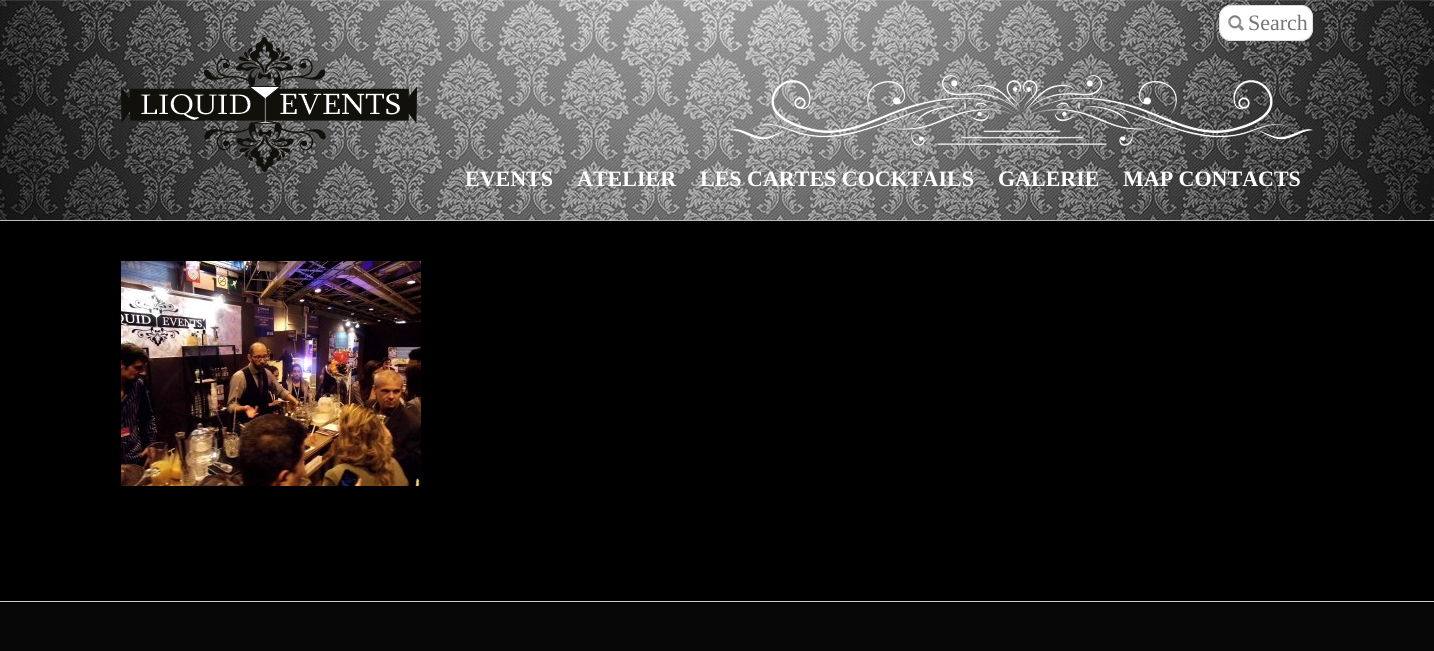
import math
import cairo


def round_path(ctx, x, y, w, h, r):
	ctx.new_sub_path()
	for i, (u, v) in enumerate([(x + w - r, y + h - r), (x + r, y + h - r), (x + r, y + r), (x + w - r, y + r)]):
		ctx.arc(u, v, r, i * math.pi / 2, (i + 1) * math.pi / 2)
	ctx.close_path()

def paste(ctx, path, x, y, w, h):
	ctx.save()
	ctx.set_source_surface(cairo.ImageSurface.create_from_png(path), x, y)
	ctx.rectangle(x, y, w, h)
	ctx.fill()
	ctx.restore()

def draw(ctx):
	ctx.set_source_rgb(0, 0, 0)
	ctx.paint()
	paste(ctx, 'media/1.png', 0, 0, 1434, 220)
	ctx.set_source_rgb(0.733, 0.733, 0.733)
	ctx.rectangle(0, 220, 1434, 1)
	ctx.fill()
	paste(ctx, 'media/2.png', 731, 75, 582, 71)
	ctx.set_source_rgb(1, 1, 1)
	round_path(ctx, 1219, 5, 94, 36, 12)
	ctx.fill()
	paste(ctx, 'media/3.png', 1228, 15, 16, 16)
	round_path(ctx, 1219.5, 5.5, 93, 35, 11.5)
	ctx.set_source_rgb(0.867, 0.867, 0.867)
	ctx.set_line_width(1)
	ctx.stroke()
	ctx.select_font_face('Liberation Serif')
	ctx.set_font_size(22)
	ctx.set_source_rgb(0.459, 0.459, 0.459)
	ctx.move_to(1248, 30)
	ctx.show_text('Search')
	paste(ctx, 'media/4.png', 121, 37, 296, 135)
	ctx.select_font_face('Liberation Serif', cairo.FONT_SLANT_NORMAL, cairo.FONT_WEIGHT_BOLD)
	ctx.set_source_rgb(1, 1, 1)
	for x, y, s in [
		(465, 186, 'EVENTS'),
		(577, 186, 'ATELIER'),
		(700, 186, 'LES CARTES COCKTAILS'),
		(998, 186, 'GALERIE'),
		(1123, 186, 'MAP CONTACTS'),
	]:
		ctx.move_to(x, y)
		ctx.show_text(s)
	paste(ctx, 'media/5.png', 121, 261, 300, 225)
	ctx.set_source_rgb(0.027, 0.027, 0.027)
	ctx.rectangle(0, 602, 1434, 49)
	ctx.fill()
	ctx.set_source_rgb(0.8, 0.8, 0.8)
	ctx.rectangle(0, 601, 1434, 1)
	ctx.fill()


surface = cairo.ImageSurface(cairo.FORMAT_RGB24, 1434, 651)
ctx = cairo.Context(surface)
options = cairo.FontOptions()
options.set_hint_metrics(cairo.HINT_METRICS_OFF)
options.set_hint_style(cairo.HINT_STYLE_NONE)
ctx.set_font_options(options)
ctx.set_miter_limit(4)
draw(ctx)
surface.write_to_png('image.png')
